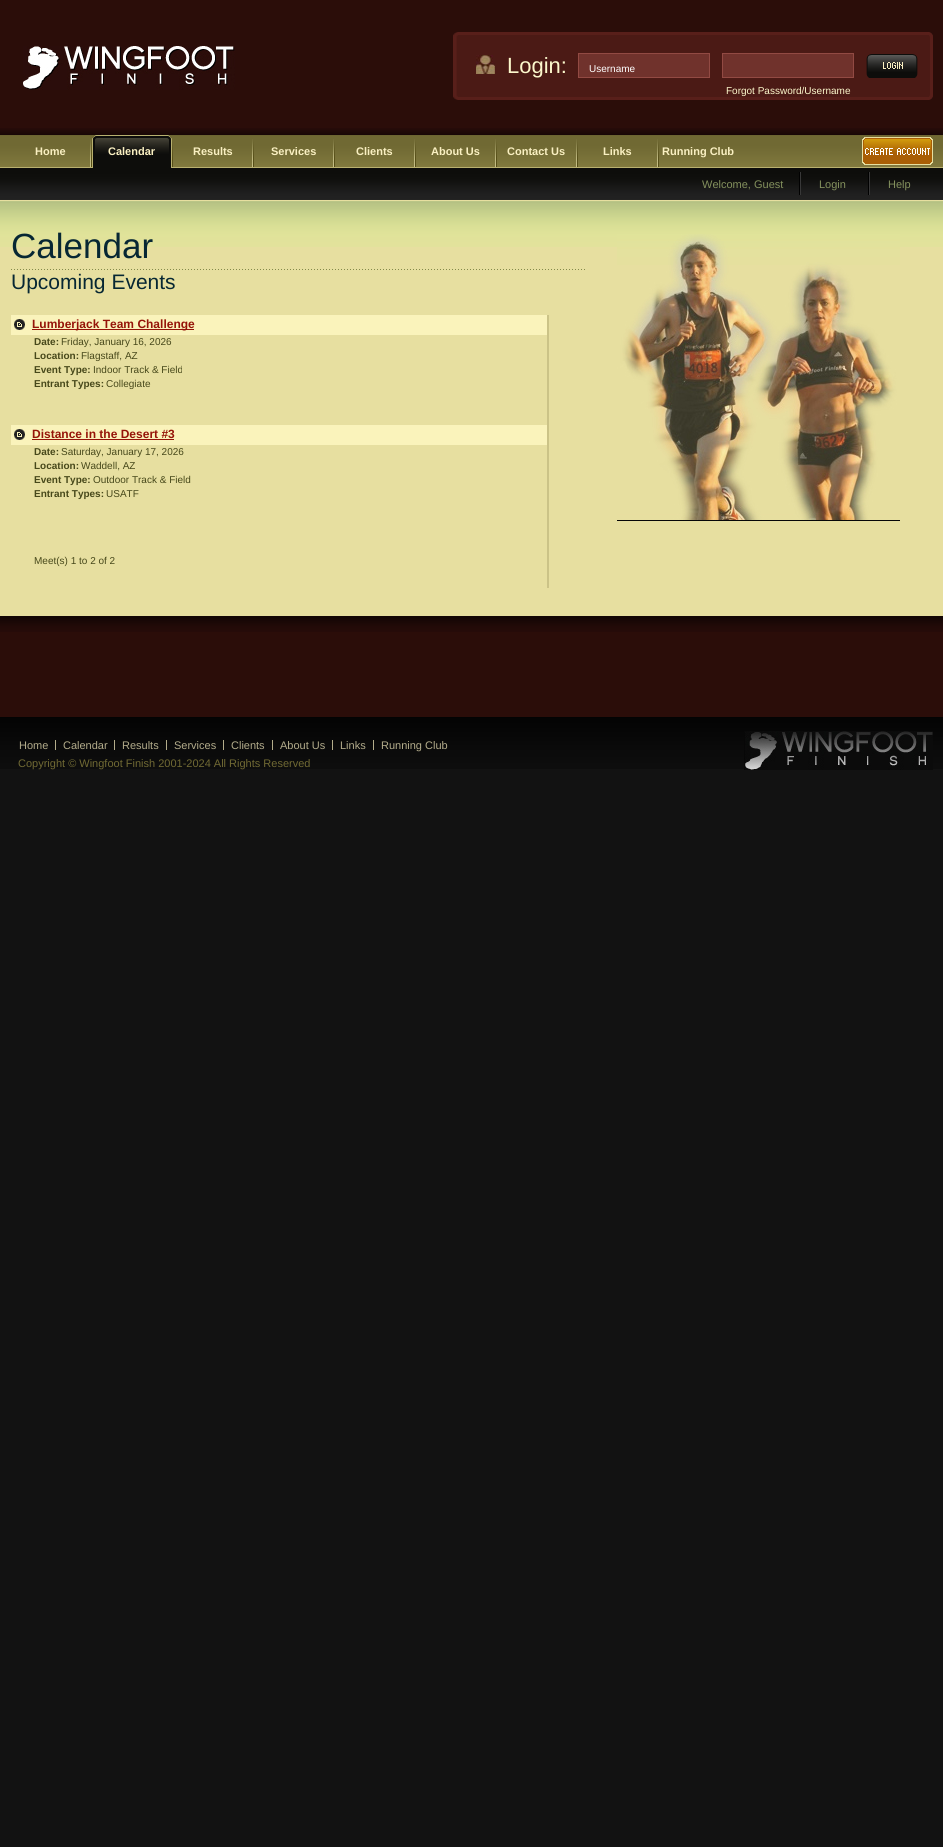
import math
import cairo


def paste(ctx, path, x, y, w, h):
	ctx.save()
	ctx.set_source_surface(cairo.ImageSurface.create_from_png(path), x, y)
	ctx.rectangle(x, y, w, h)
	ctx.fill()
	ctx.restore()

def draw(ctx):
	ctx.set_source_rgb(0.071, 0.071, 0.071)
	ctx.paint()
	ctx.set_source_rgb(0.169, 0.051, 0.039)
	ctx.rectangle(0, 0, 943, 128)
	ctx.fill()
	paste(ctx, 'media/1.png', 0, 128, 943, 7)
	paste(ctx, 'media/2.png', 23, 46, 212, 44)
	paste(ctx, 'media/3.png', 458, 32, 471, 68)
	paste(ctx, 'media/4.png', 453, 32, 5, 68)
	paste(ctx, 'media/5.png', 929, 32, 4, 68)
	paste(ctx, 'media/6.png', 476, 55, 19, 19)
	ctx.select_font_face('Liberation Sans')
	ctx.set_font_size(22)
	ctx.set_source_rgb(0.988, 0.969, 0.8)
	ctx.move_to(507, 73)
	ctx.show_text('Login:')
	ctx.set_source_rgb(0.439, 0.196, 0.173)
	ctx.rectangle(578.5, 53.5, 131, 24)
	ctx.fill_preserve()
	ctx.set_source_rgb(0.573, 0.29, 0.263)
	ctx.set_line_width(1)
	ctx.stroke()
	ctx.set_font_size(10)
	ctx.set_source_rgb(1, 1, 1)
	ctx.move_to(589, 72)
	ctx.show_text('Username')
	ctx.set_source_rgb(0.439, 0.196, 0.173)
	ctx.rectangle(722.5, 53.5, 131, 24)
	ctx.fill_preserve()
	ctx.set_source_rgb(0.573, 0.29, 0.263)
	ctx.stroke()
	paste(ctx, 'media/7.png', 866, 54, 52, 24)
	ctx.set_source_rgb(0.988, 0.969, 0.8)
	ctx.move_to(726, 94)
	ctx.show_text('Forgot Password/Username')
	paste(ctx, 'media/8.png', 0, 135, 943, 66)
	paste(ctx, 'media/9.png', 90, 139, 2, 28)
	ctx.select_font_face('Liberation Sans', cairo.FONT_SLANT_NORMAL, cairo.FONT_WEIGHT_BOLD)
	ctx.set_font_size(11)
	ctx.set_source_rgb(0.98, 0.941, 0.761)
	ctx.move_to(35, 155)
	ctx.show_text('Home')
	paste(ctx, 'media/10.png', 172, 139, 1, 28)
	paste(ctx, 'media/11.png', 92, 135, 80, 33)
	ctx.move_to(108, 155)
	ctx.show_text('Calendar')
	paste(ctx, 'media/9.png', 252, 139, 2, 28)
	ctx.move_to(193, 155)
	ctx.show_text('Results')
	paste(ctx, 'media/9.png', 333, 139, 2, 28)
	ctx.move_to(271, 155)
	ctx.show_text('Services')
	paste(ctx, 'media/9.png', 414, 139, 2, 28)
	ctx.move_to(356, 155)
	ctx.show_text('Clients')
	paste(ctx, 'media/9.png', 495, 139, 2, 28)
	ctx.move_to(431, 155)
	ctx.show_text('About Us')
	paste(ctx, 'media/9.png', 576, 139, 2, 28)
	ctx.move_to(507, 155)
	ctx.show_text('Contact Us')
	paste(ctx, 'media/9.png', 657, 139, 2, 28)
	ctx.move_to(603, 155)
	ctx.show_text('Links')
	ctx.move_to(662, 155)
	ctx.show_text('Running Club')
	paste(ctx, 'media/12.png', 862, 137, 71, 28)
	ctx.select_font_face('Liberation Sans')
	ctx.set_source_rgb(0.518, 0.569, 0.365)
	ctx.move_to(702, 188)
	ctx.show_text('Welcome, Guest')
	paste(ctx, 'media/13.png', 799, 172, 2, 23)
	ctx.move_to(819, 188)
	ctx.show_text('Login')
	paste(ctx, 'media/13.png', 868, 172, 2, 23)
	ctx.move_to(888, 188)
	ctx.show_text('Help')
	ctx.set_source_rgb(0.906, 0.875, 0.627)
	ctx.rectangle(0, 247, 943, 369)
	ctx.fill()
	paste(ctx, 'media/14.png', 0, 201, 943, 46)
	paste(ctx, 'media/15.png', 617, 234, 283, 287)
	paste(ctx, 'media/16.png', 11, 269, 574, 1)
	ctx.set_font_size(35)
	ctx.set_source_rgb(0.031, 0.153, 0.2)
	ctx.move_to(11, 258)
	ctx.show_text('Calendar')
	ctx.set_font_size(21)
	ctx.move_to(11, 289)
	ctx.show_text('Upcoming Events')
	ctx.set_source_rgb(0.796, 0.765, 0.529)
	ctx.rectangle(547, 315, 2, 273)
	ctx.fill()
	ctx.set_source_rgb(0.98, 0.953, 0.733)
	ctx.rectangle(11, 315, 536, 20)
	ctx.fill()
	paste(ctx, 'media/17.png', 14, 319, 11, 11)
	ctx.set_source_rgb(0.584, 0.082, 0.035)
	ctx.rectangle(32, 329, 162, 1)
	ctx.fill()
	ctx.select_font_face('Liberation Sans', cairo.FONT_SLANT_NORMAL, cairo.FONT_WEIGHT_BOLD)
	ctx.set_font_size(12)
	ctx.move_to(32, 328)
	ctx.show_text('Lumberjack Team Challenge')
	ctx.set_font_size(10)
	ctx.set_source_rgb(0.278, 0.282, 0.102)
	ctx.move_to(34, 345)
	ctx.show_text('Date:')
	ctx.select_font_face('Liberation Sans')
	ctx.move_to(61, 345)
	ctx.show_text('Friday, January 16, 2026')
	ctx.select_font_face('Liberation Sans', cairo.FONT_SLANT_NORMAL, cairo.FONT_WEIGHT_BOLD)
	ctx.move_to(34, 359)
	ctx.show_text('Location:')
	ctx.select_font_face('Liberation Sans')
	ctx.move_to(81, 359)
	ctx.show_text('Flagstaff, AZ')
	ctx.select_font_face('Liberation Sans', cairo.FONT_SLANT_NORMAL, cairo.FONT_WEIGHT_BOLD)
	ctx.move_to(34, 373)
	ctx.show_text('Event Type:')
	ctx.select_font_face('Liberation Sans')
	ctx.move_to(93, 373)
	ctx.show_text('Indoor Track & Field')
	ctx.select_font_face('Liberation Sans', cairo.FONT_SLANT_NORMAL, cairo.FONT_WEIGHT_BOLD)
	ctx.move_to(34, 387)
	ctx.show_text('Entrant Types:')
	ctx.select_font_face('Liberation Sans')
	ctx.move_to(106, 387)
	ctx.show_text('Collegiate')
	ctx.set_source_rgb(0.98, 0.953, 0.733)
	ctx.rectangle(11, 425, 536, 20)
	ctx.fill()
	paste(ctx, 'media/17.png', 14, 429, 11, 11)
	ctx.select_font_face('Liberation Sans', cairo.FONT_SLANT_NORMAL, cairo.FONT_WEIGHT_BOLD)
	ctx.set_font_size(12)
	ctx.set_source_rgb(0.584, 0.082, 0.035)
	ctx.move_to(32, 438)
	ctx.show_text('Distance in the Desert #3')
	ctx.rectangle(32, 439, 142, 1)
	ctx.fill()
	ctx.set_font_size(10)
	ctx.set_source_rgb(0.278, 0.282, 0.102)
	ctx.move_to(34, 455)
	ctx.show_text('Date:')
	ctx.select_font_face('Liberation Sans')
	ctx.move_to(61, 455)
	ctx.show_text('Saturday, January 17, 2026')
	ctx.select_font_face('Liberation Sans', cairo.FONT_SLANT_NORMAL, cairo.FONT_WEIGHT_BOLD)
	ctx.move_to(34, 469)
	ctx.show_text('Location:')
	ctx.select_font_face('Liberation Sans')
	ctx.move_to(81, 469)
	ctx.show_text('Waddell, AZ')
	ctx.select_font_face('Liberation Sans', cairo.FONT_SLANT_NORMAL, cairo.FONT_WEIGHT_BOLD)
	ctx.move_to(34, 483)
	ctx.show_text('Event Type:')
	ctx.select_font_face('Liberation Sans')
	ctx.move_to(93, 483)
	ctx.show_text('Outdoor Track & Field')
	ctx.select_font_face('Liberation Sans', cairo.FONT_SLANT_NORMAL, cairo.FONT_WEIGHT_BOLD)
	ctx.move_to(34, 497)
	ctx.show_text('Entrant Types:')
	ctx.select_font_face('Liberation Sans')
	ctx.move_to(106, 497)
	ctx.show_text('USATF')
	ctx.move_to(34, 564)
	ctx.show_text('Meet(s) 1 to 2 of 2')
	ctx.set_source_rgb(0.169, 0.051, 0.039)
	ctx.rectangle(0, 632, 943, 85)
	ctx.fill()
	paste(ctx, 'media/18.png', 0, 616, 943, 16)
	paste(ctx, 'media/19.png', 0, 717, 943, 52)
	paste(ctx, 'media/20.png', 744, 731, 189, 39)
	ctx.set_font_size(11)
	ctx.set_source_rgb(0.702, 0.675, 0.545)
	ctx.move_to(19, 749)
	ctx.show_text('Home')
	ctx.rectangle(55, 740, 1, 10)
	ctx.fill()
	ctx.move_to(63, 749)
	ctx.show_text('Calendar')
	ctx.rectangle(114, 740, 1, 10)
	ctx.fill()
	ctx.move_to(122, 749)
	ctx.show_text('Results')
	ctx.rectangle(166, 740, 1, 10)
	ctx.fill()
	ctx.move_to(174, 749)
	ctx.show_text('Services')
	ctx.rectangle(223, 740, 1, 10)
	ctx.fill()
	ctx.move_to(231, 749)
	ctx.show_text('Clients')
	ctx.rectangle(272, 740, 1, 10)
	ctx.fill()
	ctx.move_to(280, 749)
	ctx.show_text('About Us')
	ctx.rectangle(332, 740, 1, 10)
	ctx.fill()
	ctx.move_to(340, 749)
	ctx.show_text('Links')
	ctx.rectangle(373, 740, 1, 10)
	ctx.fill()
	ctx.move_to(381, 749)
	ctx.show_text('Running Club')
	ctx.set_source_rgb(0.439, 0.412, 0.2)
	ctx.move_to(18, 767)
	ctx.show_text('Copyright © Wingfoot Finish 2001-2024 All Rights Reserved')


surface = cairo.ImageSurface(cairo.FORMAT_RGB24, 943, 1847)
ctx = cairo.Context(surface)
options = cairo.FontOptions()
options.set_hint_metrics(cairo.HINT_METRICS_OFF)
options.set_hint_style(cairo.HINT_STYLE_NONE)
ctx.set_font_options(options)
ctx.set_miter_limit(4)
draw(ctx)
surface.write_to_png('image.png')
